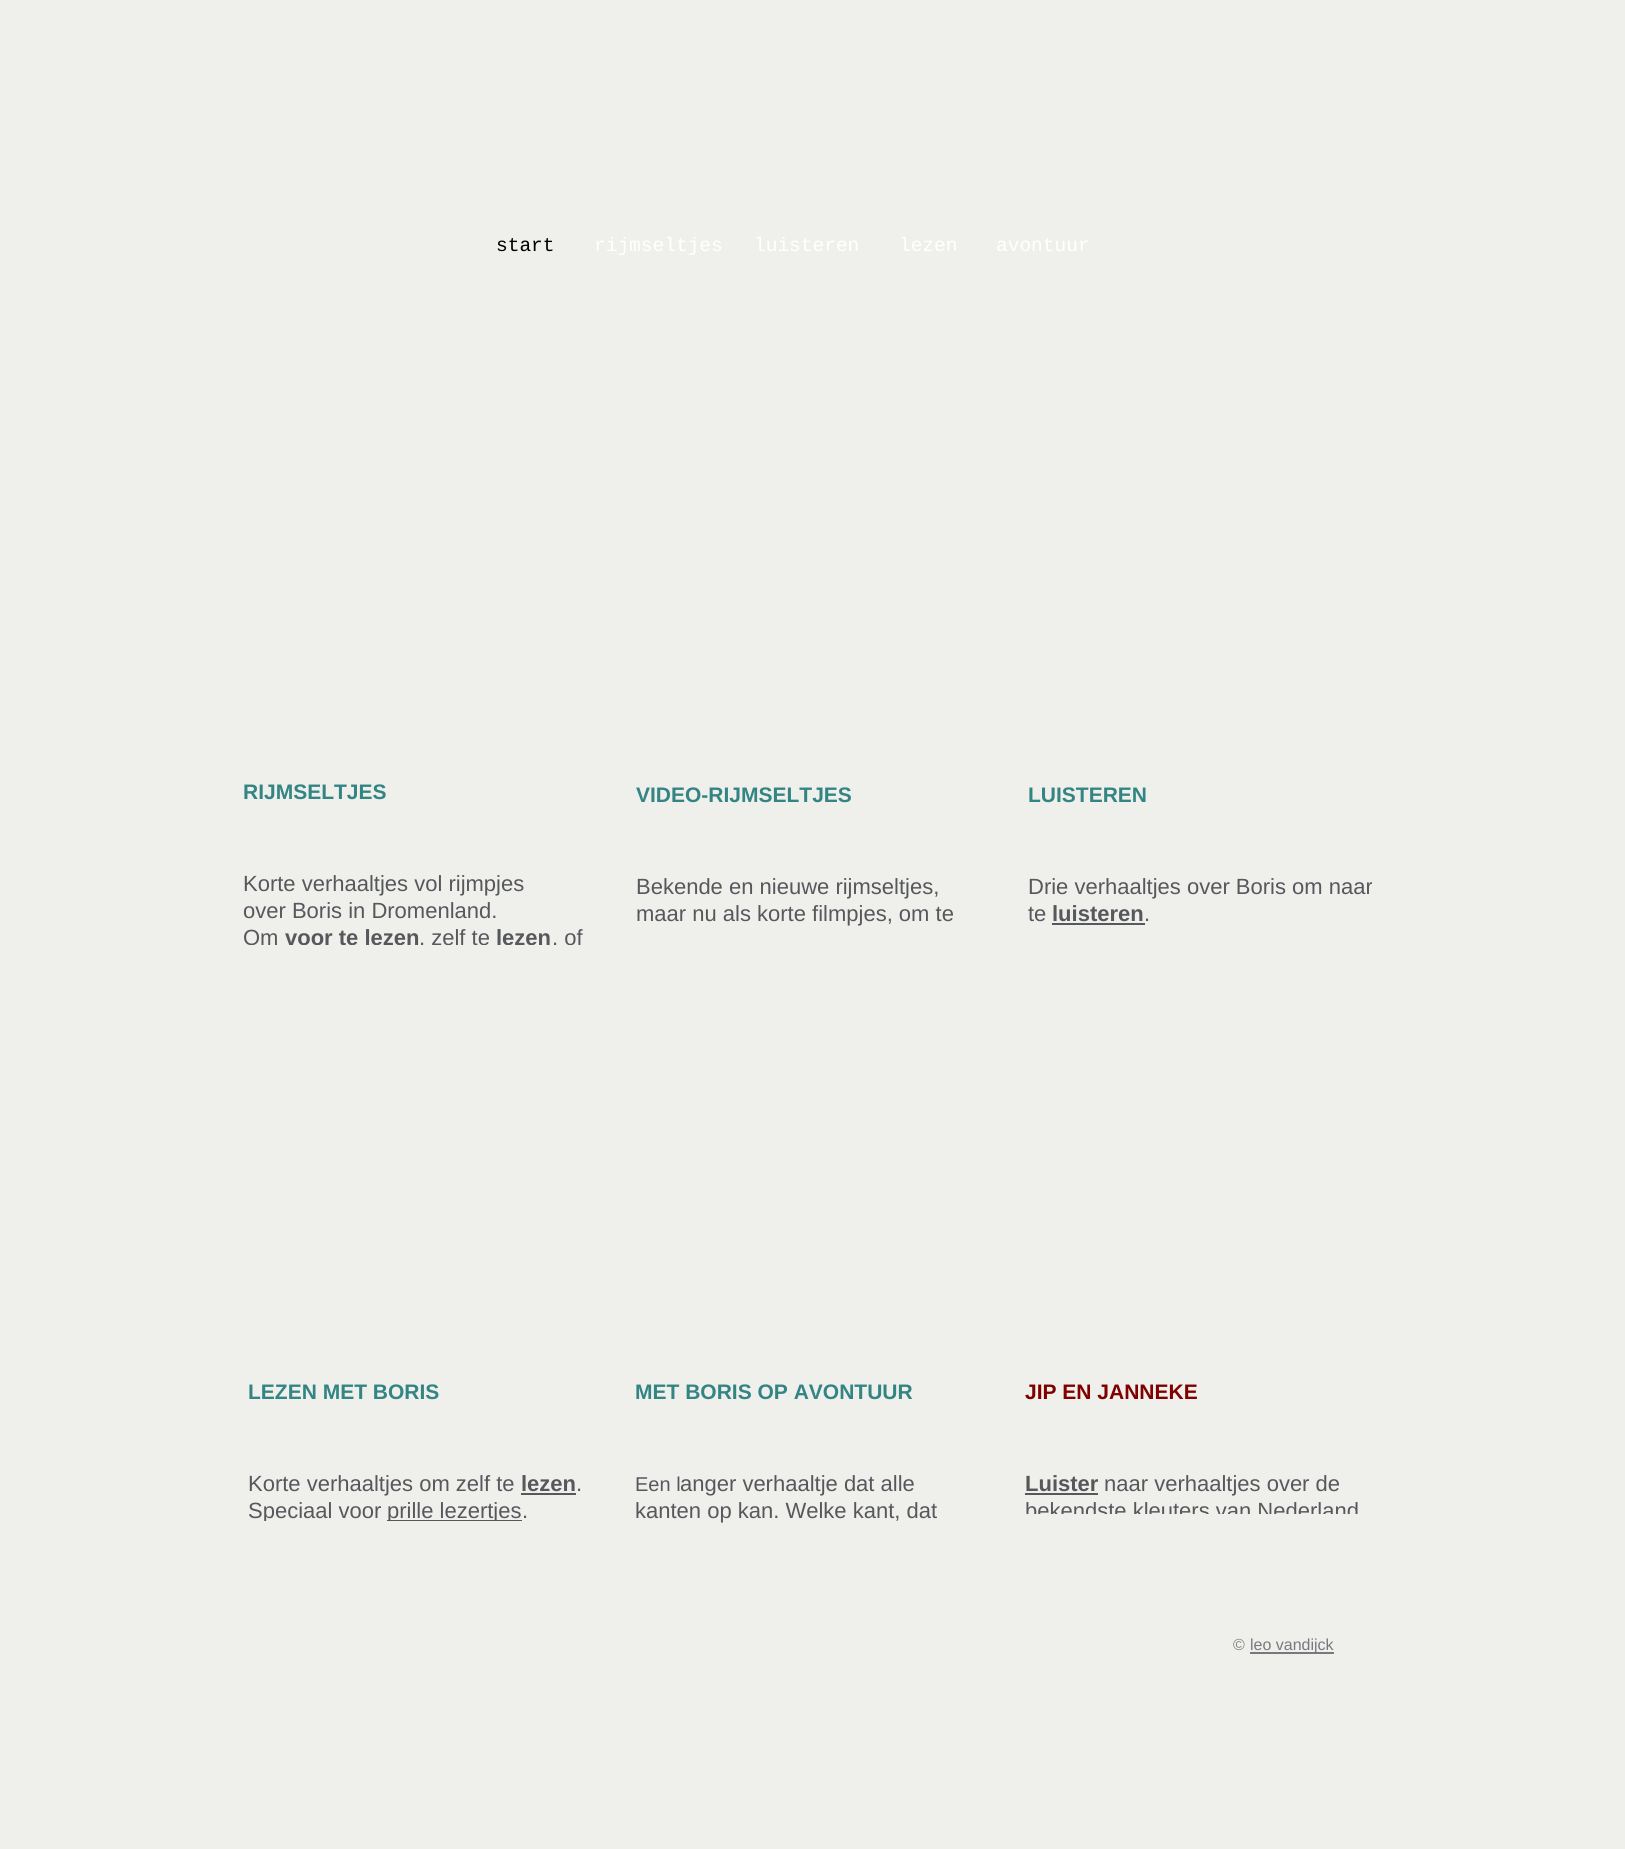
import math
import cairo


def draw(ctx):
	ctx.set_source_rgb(0.937, 0.937, 0.925)
	ctx.paint()
	ctx.select_font_face('Liberation Mono')
	ctx.set_font_size(19.5)
	ctx.set_source_rgb(0, 0, 0)
	ctx.move_to(496, 251)
	ctx.show_text('start')
	ctx.set_source_rgb(1, 1, 1)
	for x, y, s in [
		(594, 251, 'rijmseltjes'),
		(754, 251, 'luisteren'),
		(899, 251, 'lezen'),
		(996, 251, 'avontuur'),
	]:
		ctx.move_to(x, y)
		ctx.show_text(s)
	ctx.select_font_face('Liberation Sans', cairo.FONT_SLANT_NORMAL, cairo.FONT_WEIGHT_BOLD)
	ctx.set_font_size(21)
	ctx.set_source_rgb(0.2, 0.522, 0.514)
	ctx.move_to(243, 799)
	ctx.show_text('RIJMSELTJES')
	ctx.select_font_face('Liberation Sans')
	ctx.set_font_size(22)
	ctx.set_source_rgb(0.337, 0.345, 0.361)
	ctx.move_to(243, 891)
	ctx.show_text('Korte verhaaltjes vol rijmpjes')
	ctx.move_to(243, 918)
	ctx.show_text('over Boris in Dromenland.')
	ctx.save()
	ctx.rectangle(243, 723, 354, 222)
	ctx.clip()
	ctx.move_to(243, 945)
	ctx.show_text('Om')
	ctx.select_font_face('Liberation Sans', cairo.FONT_SLANT_NORMAL, cairo.FONT_WEIGHT_BOLD)
	ctx.move_to(285, 945)
	ctx.show_text('voor te lezen')
	ctx.select_font_face('Liberation Sans')
	ctx.move_to(419, 945)
	ctx.show_text(', zelf te')
	ctx.select_font_face('Liberation Sans', cairo.FONT_SLANT_NORMAL, cairo.FONT_WEIGHT_BOLD)
	ctx.move_to(496, 945)
	ctx.show_text('lezen')
	ctx.select_font_face('Liberation Sans')
	ctx.move_to(552, 945)
	ctx.show_text(', of')
	ctx.restore()
	ctx.select_font_face('Liberation Sans', cairo.FONT_SLANT_NORMAL, cairo.FONT_WEIGHT_BOLD)
	ctx.set_font_size(21)
	ctx.set_source_rgb(0.2, 0.522, 0.514)
	ctx.move_to(636, 802)
	ctx.show_text('VIDEO-RIJMSELTJES')
	ctx.select_font_face('Liberation Sans')
	ctx.set_font_size(22)
	ctx.set_source_rgb(0.337, 0.345, 0.361)
	ctx.move_to(636, 894)
	ctx.show_text('Bekende en nieuwe rijmseltjes,')
	ctx.move_to(636, 921)
	ctx.show_text('maar nu als korte filmpjes, om te')
	ctx.select_font_face('Liberation Sans', cairo.FONT_SLANT_NORMAL, cairo.FONT_WEIGHT_BOLD)
	ctx.set_font_size(21)
	ctx.set_source_rgb(0.2, 0.522, 0.514)
	ctx.move_to(1028, 802)
	ctx.show_text('LUISTEREN')
	ctx.select_font_face('Liberation Sans')
	ctx.set_font_size(22)
	ctx.set_source_rgb(0.337, 0.345, 0.361)
	ctx.move_to(1028, 894)
	ctx.show_text('Drie verhaaltjes over Boris om naar')
	ctx.move_to(1028, 921)
	ctx.show_text('te')
	ctx.select_font_face('Liberation Sans', cairo.FONT_SLANT_NORMAL, cairo.FONT_WEIGHT_BOLD)
	ctx.move_to(1052, 921)
	ctx.show_text('luisteren')
	ctx.select_font_face('Liberation Sans')
	ctx.move_to(1144, 921)
	ctx.show_text('.')
	ctx.rectangle(1052, 923, 93, 2)
	ctx.fill()
	ctx.select_font_face('Liberation Sans', cairo.FONT_SLANT_NORMAL, cairo.FONT_WEIGHT_BOLD)
	ctx.set_font_size(21)
	ctx.set_source_rgb(0.2, 0.522, 0.514)
	ctx.move_to(248, 1399)
	ctx.show_text('LEZEN MET BORIS')
	ctx.select_font_face('Liberation Sans')
	ctx.set_font_size(22)
	ctx.set_source_rgb(0.337, 0.345, 0.361)
	ctx.move_to(248, 1491)
	ctx.show_text('Korte verhaaltjes om zelf te')
	ctx.select_font_face('Liberation Sans', cairo.FONT_SLANT_NORMAL, cairo.FONT_WEIGHT_BOLD)
	ctx.move_to(521, 1491)
	ctx.show_text('lezen')
	ctx.select_font_face('Liberation Sans')
	ctx.move_to(576, 1491)
	ctx.show_text('.')
	ctx.rectangle(521, 1493, 55, 2)
	ctx.fill()
	ctx.save()
	ctx.rectangle(248, 1323, 354, 198)
	ctx.clip()
	ctx.move_to(248, 1518)
	ctx.show_text('Speciaal voor')
	ctx.restore()
	ctx.rectangle(387, 1520, 135, 1)
	ctx.fill()
	ctx.save()
	ctx.rectangle(248, 1323, 354, 198)
	ctx.clip()
	ctx.move_to(387, 1518)
	ctx.show_text('prille lezertjes')
	ctx.restore()
	ctx.move_to(522, 1518)
	ctx.show_text('.')
	ctx.select_font_face('Liberation Sans', cairo.FONT_SLANT_NORMAL, cairo.FONT_WEIGHT_BOLD)
	ctx.set_font_size(21)
	ctx.set_source_rgb(0.2, 0.522, 0.514)
	ctx.move_to(635, 1399)
	ctx.show_text('MET BORIS OP AVONTUUR')
	ctx.select_font_face('Liberation Sans')
	ctx.set_font_size(20)
	ctx.set_source_rgb(0.337, 0.345, 0.361)
	ctx.move_to(635, 1491)
	ctx.show_text('Een l')
	ctx.set_font_size(22)
	ctx.move_to(680, 1491)
	ctx.show_text('anger verhaaltje dat alle')
	ctx.move_to(635, 1518)
	ctx.show_text('kanten op kan. Welke kant, dat')
	ctx.select_font_face('Liberation Sans', cairo.FONT_SLANT_NORMAL, cairo.FONT_WEIGHT_BOLD)
	ctx.set_font_size(21)
	ctx.set_source_rgb(0.502, 0, 0)
	ctx.move_to(1025, 1399)
	ctx.show_text('JIP EN JANNEKE')
	ctx.set_font_size(22)
	ctx.set_source_rgb(0.337, 0.345, 0.361)
	ctx.move_to(1025, 1491)
	ctx.show_text('Luister')
	ctx.rectangle(1025, 1493, 73, 2)
	ctx.fill()
	ctx.select_font_face('Liberation Sans')
	ctx.move_to(1104, 1491)
	ctx.show_text('naar verhaaltjes over de')
	ctx.save()
	ctx.rectangle(1025, 1323, 348, 191)
	ctx.clip()
	ctx.move_to(1025, 1518)
	ctx.show_text('bekendste kleuters van Nederland')
	ctx.restore()
	ctx.set_font_size(16)
	ctx.set_source_rgb(0.502, 0.502, 0.502)
	ctx.move_to(1233, 1650)
	ctx.show_text('©')
	ctx.set_source_rgb(0.467, 0.475, 0.486)
	ctx.rectangle(1250, 1652, 84, 2)
	ctx.fill()
	ctx.move_to(1250, 1650)
	ctx.show_text('leo vandijck')


surface = cairo.ImageSurface(cairo.FORMAT_RGB24, 1625, 1849)
ctx = cairo.Context(surface)
options = cairo.FontOptions()
options.set_hint_metrics(cairo.HINT_METRICS_OFF)
options.set_hint_style(cairo.HINT_STYLE_NONE)
ctx.set_font_options(options)
ctx.set_miter_limit(4)
draw(ctx)
surface.write_to_png('image.png')
